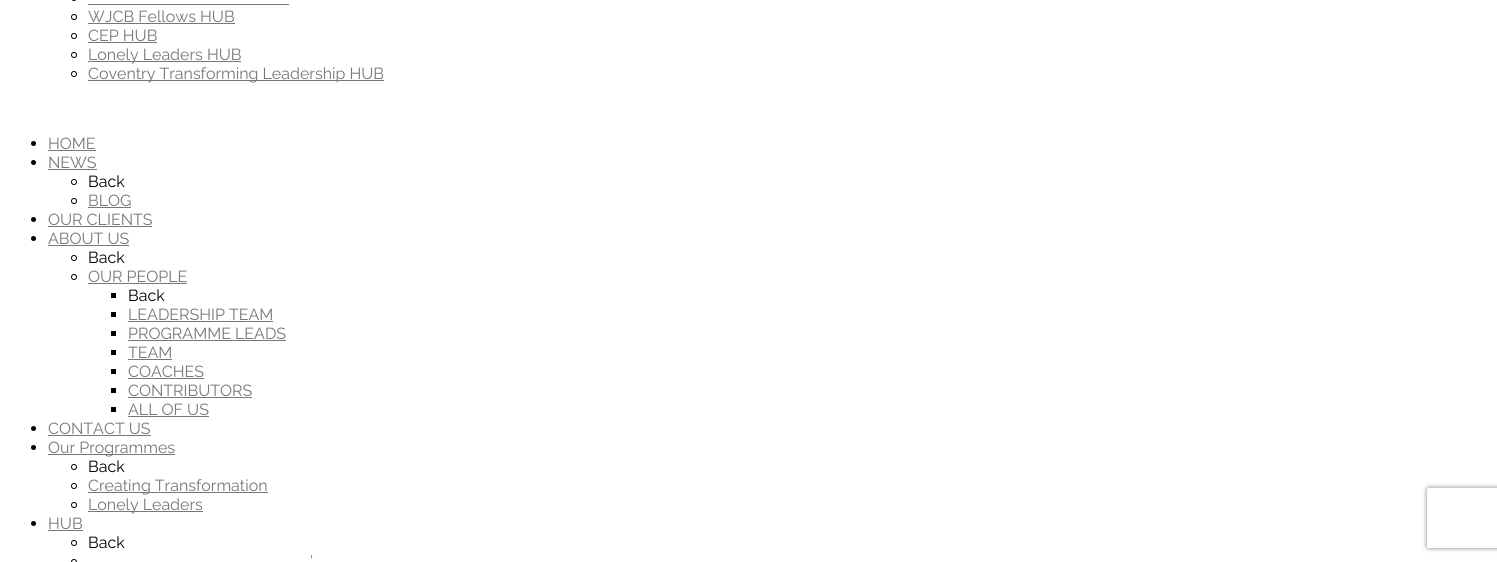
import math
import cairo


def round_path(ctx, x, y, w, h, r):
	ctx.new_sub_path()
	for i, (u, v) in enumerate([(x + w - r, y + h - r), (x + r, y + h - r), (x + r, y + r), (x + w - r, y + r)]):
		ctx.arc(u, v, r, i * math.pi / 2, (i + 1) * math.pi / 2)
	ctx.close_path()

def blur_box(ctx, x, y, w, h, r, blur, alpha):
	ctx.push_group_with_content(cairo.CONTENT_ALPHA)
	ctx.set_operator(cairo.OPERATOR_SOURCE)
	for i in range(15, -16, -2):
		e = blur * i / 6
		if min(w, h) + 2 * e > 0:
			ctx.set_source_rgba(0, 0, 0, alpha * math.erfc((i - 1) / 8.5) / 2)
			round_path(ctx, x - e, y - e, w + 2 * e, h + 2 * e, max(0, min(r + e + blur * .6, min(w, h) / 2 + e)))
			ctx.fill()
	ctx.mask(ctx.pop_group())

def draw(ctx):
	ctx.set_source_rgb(1, 1, 1)
	ctx.paint()
	round_path(ctx, 71.5, -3.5, 5, 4, 2.5)
	ctx.set_source_rgb(0, 0, 0)
	ctx.set_line_width(1)
	ctx.stroke()
	ctx.set_source_rgb(0.467, 0.467, 0.467)
	ctx.rectangle(88, 4, 201, 1)
	ctx.fill()
	ctx.arc(74, 17, 2.5, 0, 2 * math.pi)
	ctx.set_source_rgb(0, 0, 0)
	ctx.stroke()
	ctx.select_font_face('Raleway')
	ctx.set_font_size(16)
	ctx.set_source_rgb(0.467, 0.467, 0.467)
	ctx.move_to(88, 22)
	ctx.show_text('WJCB Fellows HUB')
	ctx.rectangle(88, 23, 147, 1)
	ctx.fill()
	ctx.arc(74, 36, 2.5, 0, 2 * math.pi)
	ctx.set_source_rgb(0, 0, 0)
	ctx.stroke()
	ctx.set_source_rgb(0.467, 0.467, 0.467)
	ctx.move_to(88, 41)
	ctx.show_text('CEP HUB')
	ctx.rectangle(88, 42, 69, 1)
	ctx.fill()
	ctx.arc(74, 55, 2.5, 0, 2 * math.pi)
	ctx.set_source_rgb(0, 0, 0)
	ctx.stroke()
	ctx.set_source_rgb(0.467, 0.467, 0.467)
	ctx.rectangle(88, 61, 153, 1)
	ctx.fill()
	ctx.move_to(88, 60)
	ctx.show_text('Lonely Leaders HUB')
	ctx.new_path()
	ctx.arc(74, 74, 2.5, 0, 2 * math.pi)
	ctx.set_source_rgb(0, 0, 0)
	ctx.stroke()
	ctx.set_source_rgb(0.467, 0.467, 0.467)
	ctx.rectangle(88, 80, 296, 1)
	ctx.fill()
	ctx.move_to(88, 79)
	ctx.show_text('Coventry Transforming Leadership HUB')
	ctx.set_source_rgb(0, 0, 0)
	ctx.new_path()
	ctx.arc(33.5, 143.5, 2.5, 0, 2 * math.pi)
	ctx.fill()
	ctx.set_source_rgb(0.467, 0.467, 0.467)
	ctx.move_to(48, 149)
	ctx.show_text('HOME')
	ctx.rectangle(48, 150, 48, 1)
	ctx.fill()
	ctx.set_source_rgb(0, 0, 0)
	ctx.arc(33.5, 162.5, 2.5, 0, 2 * math.pi)
	ctx.fill()
	ctx.set_source_rgb(0.467, 0.467, 0.467)
	ctx.move_to(48, 168)
	ctx.show_text('NEWS')
	ctx.rectangle(48, 169, 49, 1)
	ctx.fill()
	ctx.arc(74, 182, 2.5, 0, 2 * math.pi)
	ctx.set_source_rgb(0, 0, 0)
	ctx.stroke()
	ctx.move_to(88, 187)
	ctx.show_text('Back')
	ctx.new_path()
	ctx.arc(74, 201, 2.5, 0, 2 * math.pi)
	ctx.stroke()
	ctx.set_source_rgb(0.467, 0.467, 0.467)
	ctx.move_to(88, 206)
	ctx.show_text('BLOG')
	ctx.rectangle(88, 207, 43, 1)
	ctx.fill()
	ctx.set_source_rgb(0, 0, 0)
	ctx.arc(33.5, 219.5, 2.5, 0, 2 * math.pi)
	ctx.fill()
	ctx.set_source_rgb(0.467, 0.467, 0.467)
	ctx.move_to(48, 225)
	ctx.show_text('OUR CLIENTS')
	ctx.rectangle(48, 226, 104, 1)
	ctx.fill()
	ctx.set_source_rgb(0, 0, 0)
	ctx.arc(33.5, 238.5, 2.5, 0, 2 * math.pi)
	ctx.fill()
	ctx.set_source_rgb(0.467, 0.467, 0.467)
	ctx.move_to(48, 244)
	ctx.show_text('ABOUT US')
	ctx.rectangle(48, 245, 81, 1)
	ctx.fill()
	ctx.arc(74, 258, 2.5, 0, 2 * math.pi)
	ctx.set_source_rgb(0, 0, 0)
	ctx.stroke()
	ctx.move_to(88, 263)
	ctx.show_text('Back')
	ctx.new_path()
	ctx.arc(74, 277, 2.5, 0, 2 * math.pi)
	ctx.stroke()
	ctx.set_source_rgb(0.467, 0.467, 0.467)
	ctx.move_to(88, 282)
	ctx.show_text('OUR PEOPLE')
	ctx.rectangle(88, 283, 99, 1)
	ctx.fill()
	ctx.set_source_rgb(0, 0, 0)
	ctx.rectangle(111, 293, 5, 5)
	ctx.fill()
	ctx.move_to(128, 301)
	ctx.show_text('Back')
	ctx.rectangle(111, 312, 5, 5)
	ctx.fill()
	ctx.set_source_rgb(0.467, 0.467, 0.467)
	ctx.move_to(128, 320)
	ctx.show_text('LEADERSHIP TEAM')
	ctx.rectangle(128, 321, 145, 1)
	ctx.fill()
	ctx.set_source_rgb(0, 0, 0)
	ctx.rectangle(111, 331, 5, 5)
	ctx.fill()
	ctx.set_source_rgb(0.467, 0.467, 0.467)
	ctx.move_to(128, 339)
	ctx.show_text('PROGRAMME LEADS')
	ctx.rectangle(128, 340, 158, 1)
	ctx.fill()
	ctx.set_source_rgb(0, 0, 0)
	ctx.rectangle(111, 350, 5, 5)
	ctx.fill()
	ctx.set_source_rgb(0.467, 0.467, 0.467)
	ctx.move_to(128, 358)
	ctx.show_text('TEAM')
	ctx.rectangle(128, 359, 44, 1)
	ctx.fill()
	ctx.set_source_rgb(0, 0, 0)
	ctx.rectangle(111, 369, 5, 5)
	ctx.fill()
	ctx.set_source_rgb(0.467, 0.467, 0.467)
	ctx.move_to(128, 377)
	ctx.show_text('COACHES')
	ctx.rectangle(128, 378, 76, 1)
	ctx.fill()
	ctx.set_source_rgb(0, 0, 0)
	ctx.rectangle(111, 388, 5, 5)
	ctx.fill()
	ctx.set_source_rgb(0.467, 0.467, 0.467)
	ctx.move_to(128, 396)
	ctx.show_text('CONTRIBUTORS')
	ctx.rectangle(128, 397, 124, 1)
	ctx.fill()
	ctx.set_source_rgb(0, 0, 0)
	ctx.rectangle(111, 407, 5, 5)
	ctx.fill()
	ctx.set_source_rgb(0.467, 0.467, 0.467)
	ctx.move_to(128, 415)
	ctx.show_text('ALL OF US')
	ctx.rectangle(128, 416, 81, 1)
	ctx.fill()
	ctx.set_source_rgb(0, 0, 0)
	ctx.arc(33.5, 428.5, 2.5, 0, 2 * math.pi)
	ctx.fill()
	ctx.set_source_rgb(0.467, 0.467, 0.467)
	ctx.move_to(48, 434)
	ctx.show_text('CONTACT US')
	ctx.rectangle(48, 435, 103, 1)
	ctx.fill()
	ctx.set_source_rgb(0, 0, 0)
	ctx.arc(33.5, 447.5, 2.5, 0, 2 * math.pi)
	ctx.fill()
	ctx.set_source_rgb(0.467, 0.467, 0.467)
	ctx.rectangle(48, 454, 127, 1)
	ctx.fill()
	ctx.move_to(48, 453)
	ctx.show_text('Our Programmes')
	ctx.new_path()
	ctx.arc(74, 467, 2.5, 0, 2 * math.pi)
	ctx.set_source_rgb(0, 0, 0)
	ctx.stroke()
	ctx.move_to(88, 472)
	ctx.show_text('Back')
	ctx.new_path()
	ctx.arc(74, 486, 2.5, 0, 2 * math.pi)
	ctx.stroke()
	ctx.set_source_rgb(0.467, 0.467, 0.467)
	ctx.rectangle(88, 492, 180, 1)
	ctx.fill()
	ctx.move_to(88, 491)
	ctx.show_text('Creating Transformation')
	ctx.new_path()
	ctx.arc(74, 505, 2.5, 0, 2 * math.pi)
	ctx.set_source_rgb(0, 0, 0)
	ctx.stroke()
	ctx.set_source_rgb(0.467, 0.467, 0.467)
	ctx.rectangle(88, 511, 115, 1)
	ctx.fill()
	ctx.move_to(88, 510)
	ctx.show_text('Lonely Leaders')
	ctx.set_source_rgb(0, 0, 0)
	ctx.new_path()
	ctx.arc(33.5, 523.5, 2.5, 0, 2 * math.pi)
	ctx.fill()
	ctx.set_source_rgb(0.467, 0.467, 0.467)
	ctx.move_to(48, 529)
	ctx.show_text('HUB')
	ctx.rectangle(48, 530, 35, 1)
	ctx.fill()
	ctx.arc(74, 543, 2.5, 0, 2 * math.pi)
	ctx.set_source_rgb(0, 0, 0)
	ctx.stroke()
	ctx.move_to(88, 548)
	ctx.show_text('Back')
	ctx.set_source_rgb(0.467, 0.467, 0.467)
	ctx.move_to(310, 567)
	ctx.show_text('’')
	ctx.new_path()
	ctx.arc(74, 562, 2.5, 0, 2 * math.pi)
	ctx.set_source_rgb(0, 0, 0)
	ctx.stroke()
	ctx.save()
	ctx.set_fill_rule(cairo.FILL_RULE_EVEN_ODD)
	ctx.new_path()
	ctx.move_to(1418, 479)
	ctx.line_to(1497, 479)
	ctx.line_to(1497, 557)
	ctx.line_to(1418, 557)
	ctx.close_path()
	ctx.move_to(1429, 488)
	ctx.line_to(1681, 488)
	ctx.curve_to(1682, 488, 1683, 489, 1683, 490)
	ctx.line_to(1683, 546)
	ctx.curve_to(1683, 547, 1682, 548, 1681, 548)
	ctx.line_to(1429, 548)
	ctx.curve_to(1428, 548, 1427, 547, 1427, 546)
	ctx.line_to(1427, 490)
	ctx.curve_to(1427, 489, 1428, 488, 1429, 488)
	ctx.close_path()
	ctx.clip()
	ctx.set_source_rgb(0.502, 0.502, 0.502)
	blur_box(ctx, 1427, 488, 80, 60, 2, 2.5, 1)
	ctx.restore()


surface = cairo.ImageSurface(cairo.FORMAT_RGB24, 1497, 562)
ctx = cairo.Context(surface)
options = cairo.FontOptions()
options.set_hint_metrics(cairo.HINT_METRICS_OFF)
options.set_hint_style(cairo.HINT_STYLE_NONE)
ctx.set_font_options(options)
ctx.set_miter_limit(4)
draw(ctx)
surface.write_to_png('image.png')
